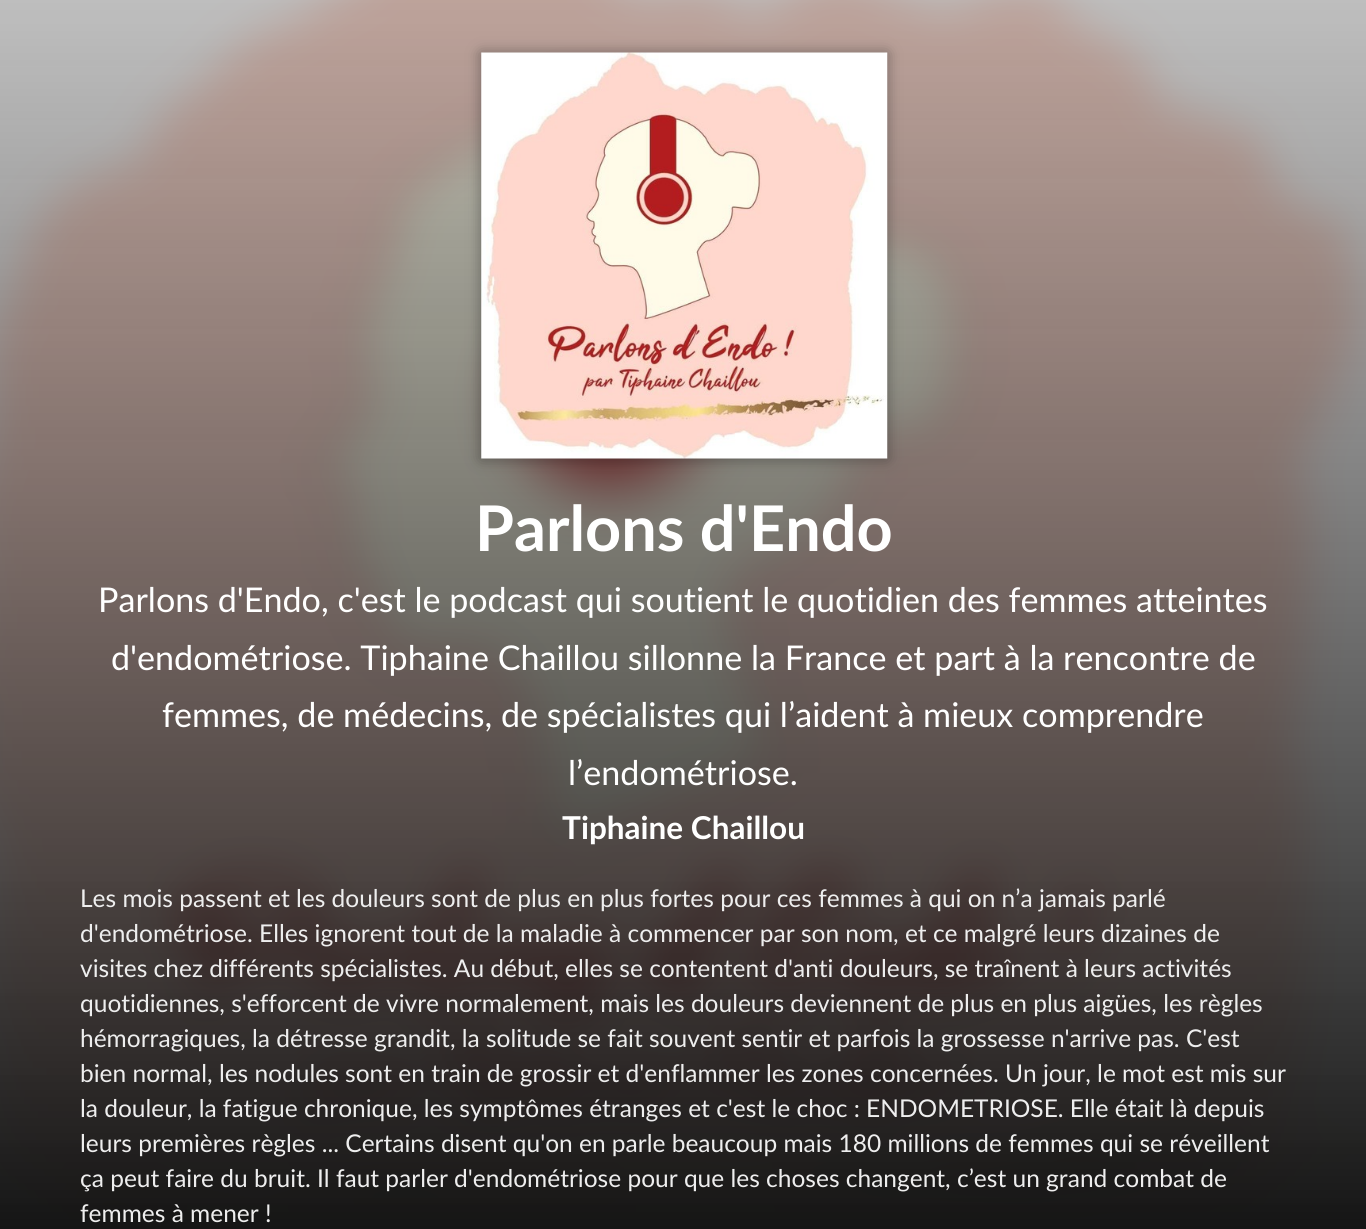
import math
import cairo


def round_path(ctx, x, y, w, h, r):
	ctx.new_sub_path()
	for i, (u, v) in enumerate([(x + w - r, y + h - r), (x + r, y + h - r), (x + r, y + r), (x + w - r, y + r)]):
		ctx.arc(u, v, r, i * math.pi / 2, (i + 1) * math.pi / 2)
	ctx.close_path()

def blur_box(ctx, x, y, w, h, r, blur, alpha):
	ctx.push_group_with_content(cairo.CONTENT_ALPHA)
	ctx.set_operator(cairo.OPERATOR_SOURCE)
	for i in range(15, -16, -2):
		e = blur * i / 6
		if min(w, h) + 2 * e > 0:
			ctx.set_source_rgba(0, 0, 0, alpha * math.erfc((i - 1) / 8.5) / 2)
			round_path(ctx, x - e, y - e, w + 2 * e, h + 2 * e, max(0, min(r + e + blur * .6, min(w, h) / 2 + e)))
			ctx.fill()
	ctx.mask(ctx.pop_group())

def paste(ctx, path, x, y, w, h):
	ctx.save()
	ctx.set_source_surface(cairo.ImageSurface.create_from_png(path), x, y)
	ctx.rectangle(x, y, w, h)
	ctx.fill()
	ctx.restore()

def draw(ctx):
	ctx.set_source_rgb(1, 1, 1)
	ctx.paint()
	paste(ctx, 'media/1.png', 0, 0, 1366, 1229)
	ctx.set_source_rgb(0.118, 0.118, 0.118)
	blur_box(ctx, 481, 53, 406, 406, 0, 7, 0.45)
	paste(ctx, 'media/2.png', 481, 52, 407, 407)
	ctx.select_font_face('Lato', cairo.FONT_SLANT_NORMAL, cairo.FONT_WEIGHT_BOLD)
	ctx.set_font_size(63)
	ctx.set_source_rgb(1, 1, 1)
	ctx.move_to(475, 551)
	ctx.show_text('Parlons d\'Endo')
	ctx.select_font_face('Lato')
	ctx.set_font_size(34.1)
	for x, y, s in [
		(98, 612, 'Parlons d\'Endo, c\'est le podcast qui soutient le quotidien des femmes atteintes'),
		(111, 670, 'd\'endométriose. Tiphaine Chaillou sillonne la France et part à la rencontre de'),
		(162, 727, 'femmes, de médecins, de spécialistes qui l’aident à mieux comprendre'),
		(568, 785, 'l’endométriose.'),
	]:
		ctx.move_to(x, y)
		ctx.show_text(s)
	ctx.select_font_face('Lato', cairo.FONT_SLANT_NORMAL, cairo.FONT_WEIGHT_BOLD)
	ctx.set_font_size(31.5)
	ctx.move_to(562, 839)
	ctx.show_text('Tiphaine Chaillou')
	ctx.select_font_face('Lato')
	ctx.set_font_size(24.5)
	ctx.set_source_rgb(0.933, 0.933, 0.933)
	for x, y, s in [
		(80, 907, 'Les mois passent et les douleurs sont de plus en plus fortes pour ces femmes à qui on n’a jamais parlé'),
		(80, 942, 'd\'endométriose. Elles ignorent tout de la maladie à commencer par son nom, et ce malgré leurs dizaines de'),
		(80, 977, 'visites chez différents spécialistes. Au début, elles se contentent d\'anti douleurs, se traînent à leurs activités'),
		(80, 1012, 'quotidiennes, s\'efforcent de vivre normalement, mais les douleurs deviennent de plus en plus aigües, les règles'),
		(80, 1047, 'hémorragiques, la détresse grandit, la solitude se fait souvent sentir et parfois la grossesse n\'arrive pas. C\'est'),
		(80, 1082, 'bien normal, les nodules sont en train de grossir et d\'enflammer les zones concernées. Un jour, le mot est mis sur'),
		(80, 1117, 'la douleur, la fatigue chronique, les symptômes étranges et c\'est le choc : ENDOMETRIOSE. Elle était là depuis'),
		(80, 1152, 'leurs premières règles ... Certains disent qu\'on en parle beaucoup mais 180 millions de femmes qui se réveillent'),
		(80, 1187, 'ça peut faire du bruit. Il faut parler d\'endométriose pour que les choses changent, c’est un grand combat de'),
		(80, 1222, 'femmes à mener !'),
	]:
		ctx.move_to(x, y)
		ctx.show_text(s)


surface = cairo.ImageSurface(cairo.FORMAT_RGB24, 1366, 1229)
ctx = cairo.Context(surface)
options = cairo.FontOptions()
options.set_hint_metrics(cairo.HINT_METRICS_OFF)
options.set_hint_style(cairo.HINT_STYLE_NONE)
ctx.set_font_options(options)
ctx.set_miter_limit(4)
draw(ctx)
surface.write_to_png('image.png')
